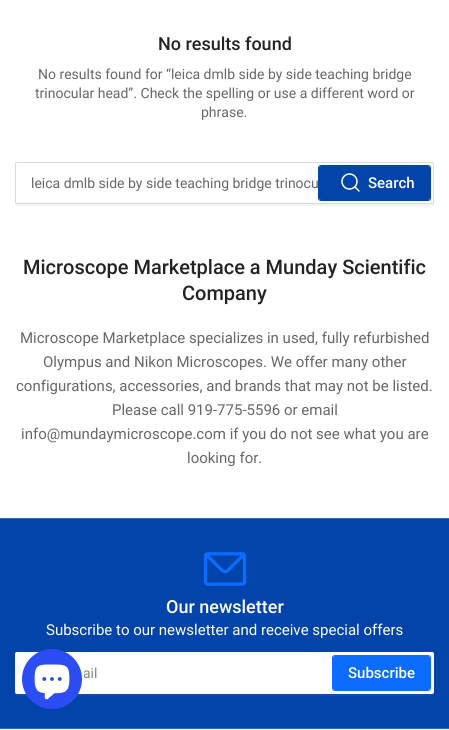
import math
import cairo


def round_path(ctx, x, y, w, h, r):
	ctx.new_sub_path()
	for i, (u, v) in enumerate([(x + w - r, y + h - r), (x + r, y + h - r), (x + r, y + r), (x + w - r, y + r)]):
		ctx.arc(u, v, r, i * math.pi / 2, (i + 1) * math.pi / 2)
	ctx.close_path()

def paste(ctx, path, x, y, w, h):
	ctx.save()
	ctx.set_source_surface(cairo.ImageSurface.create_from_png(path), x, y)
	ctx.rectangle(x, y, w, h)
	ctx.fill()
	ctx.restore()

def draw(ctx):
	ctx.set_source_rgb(1, 1, 1)
	ctx.paint()
	ctx.select_font_face('Roboto Medium')
	ctx.set_font_size(18)
	ctx.set_source_rgb(0.137, 0.137, 0.137)
	ctx.move_to(158, 50)
	ctx.show_text('No results found')
	ctx.select_font_face('Roboto')
	ctx.set_font_size(14)
	ctx.set_source_rgb(0.404, 0.404, 0.404)
	for x, y, s in [
		(38, 79, 'No results found for “leica dmlb side by side teaching bridge'),
		(35, 98, 'trinocular head”. Check the spelling or use a different word or'),
		(201, 117, 'phrase.'),
	]:
		ctx.move_to(x, y)
		ctx.show_text(s)
	ctx.set_source_rgb(0.957, 0.957, 0.957)
	ctx.new_path()
	ctx.move_to(15, 202)
	ctx.line_to(15, 205)
	ctx.line_to(17, 206)
	ctx.line_to(432, 206)
	ctx.curve_to(434, 206, 434, 204, 434, 202)
	ctx.curve_to(434, 203, 433, 204, 432, 204)
	ctx.line_to(17, 204)
	ctx.curve_to(16, 204, 15, 203, 15, 202)
	ctx.close_path()
	ctx.fill()
	round_path(ctx, 15.5, 162.5, 418, 41, 1.5)
	ctx.set_source_rgb(0.855, 0.855, 0.855)
	ctx.set_line_width(1)
	ctx.stroke()
	ctx.set_source_rgb(0.404, 0.404, 0.404)
	ctx.move_to(31, 188)
	ctx.show_text('leica dmlb side by side teaching bridge trinocu')
	round_path(ctx, 318.5, 165.5, 112, 35, 2.5)
	ctx.set_source_rgb(0.008, 0.267, 0.663)
	ctx.stroke()
	round_path(ctx, 319, 166, 111, 34, 2)
	ctx.fill()
	paste(ctx, 'media/1.png', 341, 173, 19, 19)
	ctx.select_font_face('Roboto Medium')
	ctx.set_font_size(15)
	ctx.set_source_rgb(1, 1, 1)
	ctx.move_to(368, 188)
	ctx.show_text('Search')
	ctx.set_font_size(20)
	ctx.set_source_rgb(0.137, 0.137, 0.137)
	ctx.move_to(23, 274)
	ctx.show_text('Microscope Marketplace a Munday Scientific')
	ctx.move_to(182, 300)
	ctx.show_text('Company')
	ctx.select_font_face('Roboto')
	ctx.set_font_size(15)
	ctx.set_source_rgb(0.404, 0.404, 0.404)
	for x, y, s in [
		(20, 343, 'Microscope Marketplace specializes in used, fully refurbished'),
		(43, 367, 'Olympus and Nikon Microscopes. We offer many other'),
		(16, 391, 'configurations, accessories, and brands that may not be listed.'),
		(112, 415, 'Please call 919-775-5596 or email'),
		(21, 439, 'info@mundaymicroscope.com if you do not see what you are'),
		(187, 463, 'looking for.'),
	]:
		ctx.move_to(x, y)
		ctx.show_text(s)
	ctx.set_source_rgb(0.008, 0.267, 0.663)
	ctx.rectangle(0, 519, 449, 209)
	ctx.fill()
	ctx.set_source_rgb(0.208, 0.412, 0.729)
	ctx.rectangle(0, 518, 449, 1)
	ctx.rectangle(0, 728, 449, 1)
	ctx.fill()
	paste(ctx, 'media/2.png', 203, 552, 44, 34)
	ctx.select_font_face('Roboto Medium')
	ctx.set_font_size(18)
	ctx.set_source_rgb(1, 1, 1)
	ctx.move_to(166, 613)
	ctx.show_text('Our newsletter')
	ctx.select_font_face('Roboto')
	ctx.set_font_size(15)
	ctx.move_to(46, 635)
	ctx.show_text('Subscribe to our newsletter and receive special offers')
	ctx.set_source_rgb(0.051, 0.298, 0.671)
	ctx.new_path()
	ctx.move_to(15, 692)
	ctx.line_to(15, 695)
	ctx.line_to(17, 696)
	ctx.line_to(432, 696)
	ctx.curve_to(434, 696, 434, 694, 434, 692)
	ctx.curve_to(434, 693, 433, 694, 432, 694)
	ctx.line_to(17, 694)
	ctx.curve_to(16, 694, 15, 693, 15, 692)
	ctx.close_path()
	ctx.fill()
	ctx.set_source_rgb(1, 1, 1)
	round_path(ctx, 15, 652, 419, 42, 2)
	ctx.fill()
	round_path(ctx, 15.5, 652.5, 418, 41, 1.5)
	ctx.set_source_rgba(1, 1, 1, 0.2)
	ctx.stroke()
	ctx.set_font_size(14)
	ctx.set_source_rgb(0.522, 0.522, 0.522)
	ctx.move_to(83, 678)
	ctx.show_text('ail')
	round_path(ctx, 332.5, 655.5, 98, 35, 2.5)
	ctx.set_source_rgb(0.043, 0.424, 1)
	ctx.stroke()
	round_path(ctx, 333, 656, 97, 34, 2)
	ctx.fill()
	ctx.select_font_face('Roboto Medium')
	ctx.set_font_size(15)
	ctx.set_source_rgb(1, 1, 1)
	ctx.move_to(348, 678)
	ctx.show_text('Subscribe')
	ctx.set_source_rgb(0.973, 0.973, 0.973)
	ctx.rectangle(0, 729, 449, 1)
	ctx.fill()
	ctx.set_source_rgb(0.173, 0.302, 0.953)
	ctx.arc(52, 679, 30, 0, 2 * math.pi)
	ctx.fill()
	paste(ctx, 'media/3.png', 34, 664, 36, 36)


surface = cairo.ImageSurface(cairo.FORMAT_RGB24, 449, 730)
ctx = cairo.Context(surface)
options = cairo.FontOptions()
options.set_hint_metrics(cairo.HINT_METRICS_OFF)
options.set_hint_style(cairo.HINT_STYLE_NONE)
ctx.set_font_options(options)
ctx.set_miter_limit(4)
draw(ctx)
surface.write_to_png('image.png')
